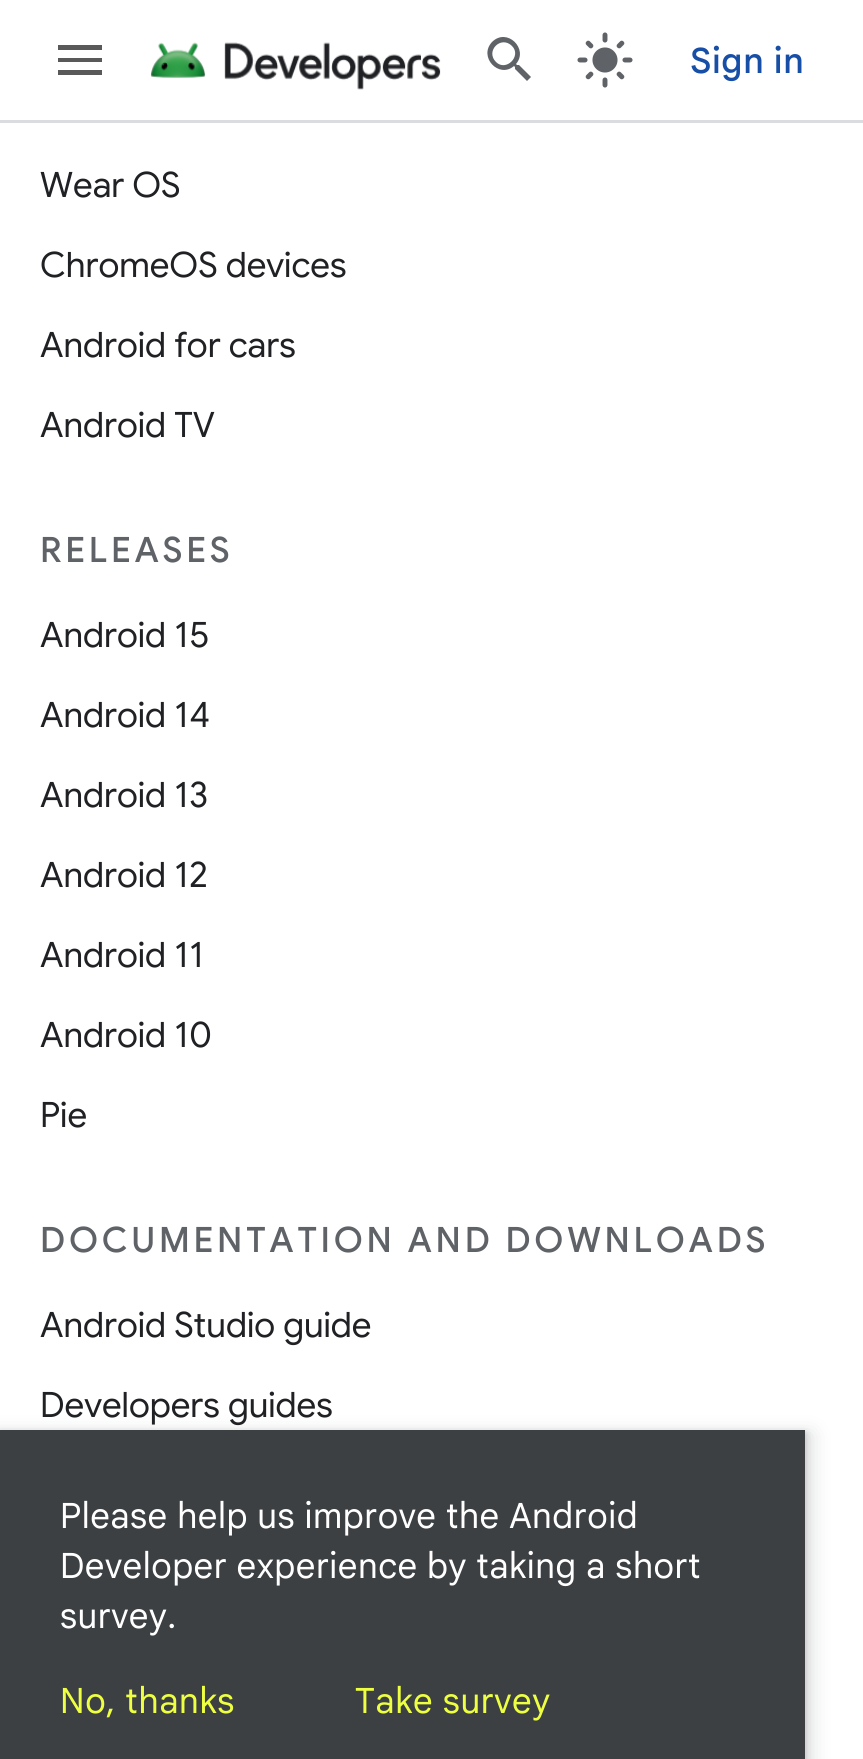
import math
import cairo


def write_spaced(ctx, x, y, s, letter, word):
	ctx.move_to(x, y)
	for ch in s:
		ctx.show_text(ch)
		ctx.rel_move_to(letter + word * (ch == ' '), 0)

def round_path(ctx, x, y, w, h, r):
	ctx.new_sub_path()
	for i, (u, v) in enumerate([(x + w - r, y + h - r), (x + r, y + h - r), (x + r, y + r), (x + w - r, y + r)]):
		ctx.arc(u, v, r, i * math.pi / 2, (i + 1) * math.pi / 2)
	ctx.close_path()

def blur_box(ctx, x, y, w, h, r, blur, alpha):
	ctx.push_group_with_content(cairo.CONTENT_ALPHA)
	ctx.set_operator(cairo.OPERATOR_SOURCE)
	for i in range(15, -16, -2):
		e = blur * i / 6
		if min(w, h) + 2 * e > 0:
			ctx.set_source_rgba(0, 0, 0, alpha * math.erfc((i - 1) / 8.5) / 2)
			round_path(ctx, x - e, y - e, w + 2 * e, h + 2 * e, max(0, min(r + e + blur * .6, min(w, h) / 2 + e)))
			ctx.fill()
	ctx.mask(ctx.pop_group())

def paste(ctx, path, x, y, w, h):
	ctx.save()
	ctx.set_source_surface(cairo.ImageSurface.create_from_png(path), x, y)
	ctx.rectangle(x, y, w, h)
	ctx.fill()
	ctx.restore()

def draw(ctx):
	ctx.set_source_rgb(1, 1, 1)
	ctx.paint()
	ctx.set_source_rgb(0.855, 0.863, 0.878)
	ctx.rectangle(0, 120, 863, 3)
	ctx.fill()
	ctx.set_source_rgb(0.349, 0.349, 0.349)
	ctx.new_path()
	ctx.move_to(58, 45)
	ctx.line_to(102, 45)
	ctx.line_to(102, 50)
	ctx.line_to(58, 50)
	ctx.close_path()
	ctx.move_to(58, 62)
	ctx.line_to(58, 58)
	ctx.line_to(102, 58)
	ctx.line_to(102, 62)
	ctx.close_path()
	ctx.move_to(58, 75)
	ctx.line_to(58, 70)
	ctx.line_to(102, 70)
	ctx.line_to(102, 75)
	ctx.close_path()
	ctx.fill()
	paste(ctx, 'media/1.png', 150, 42, 291, 48)
	ctx.set_source_rgb(0.373, 0.388, 0.408)
	ctx.new_path()
	ctx.move_to(496, 62)
	ctx.curve_to(506, 72, 522, 56, 512, 46)
	ctx.curve_to(501, 35, 485, 51, 496, 62)
	ctx.close_path()
	ctx.move_to(519, 65)
	ctx.line_to(531, 77)
	ctx.line_to(527, 81)
	ctx.line_to(515, 69)
	ctx.line_to(515, 67)
	ctx.line_to(514, 66)
	ctx.curve_to(499, 79, 478, 57, 492, 42)
	ctx.curve_to(507, 27, 529, 49, 516, 64)
	ctx.line_to(517, 65)
	ctx.close_path()
	ctx.fill()
	paste(ctx, 'media/2.png', 577, 32, 56, 56)
	ctx.select_font_face('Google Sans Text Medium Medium')
	ctx.set_font_size(35)
	ctx.set_source_rgb(0.09, 0.306, 0.651)
	write_spaced(ctx, 690, 73, 'Sign in', 0.6, 0)
	ctx.select_font_face('Google Sans')
	ctx.set_source_rgb(0.125, 0.129, 0.141)
	for x, y, s in [
		(40, 197, 'Wear OS'),
		(40, 277, 'ChromeOS devices'),
		(40, 357, 'Android for cars'),
		(40, 437, 'Android TV'),
	]:
		ctx.move_to(x, y)
		ctx.show_text(s)
	ctx.select_font_face('Google Sans Medium')
	ctx.set_source_rgb(0.373, 0.388, 0.408)
	write_spaced(ctx, 40, 562, 'RELEASES', 3.75, 0)
	ctx.select_font_face('Google Sans')
	ctx.set_source_rgb(0.125, 0.129, 0.141)
	for x, y, s in [
		(40, 647, 'Android 15'),
		(40, 727, 'Android 14'),
		(40, 807, 'Android 13'),
		(40, 887, 'Android 12'),
		(40, 967, 'Android 11'),
		(40, 1047, 'Android 10'),
		(40, 1127, 'Pie'),
	]:
		ctx.move_to(x, y)
		ctx.show_text(s)
	ctx.select_font_face('Google Sans Medium')
	ctx.set_source_rgb(0.373, 0.388, 0.408)
	write_spaced(ctx, 40, 1252, 'DOCUMENTATION AND DOWNLOADS', 3.75, 0)
	ctx.select_font_face('Google Sans')
	ctx.set_source_rgb(0.125, 0.129, 0.141)
	ctx.move_to(40, 1337)
	ctx.show_text('Android Studio guide')
	ctx.move_to(40, 1417)
	ctx.show_text('Developers guides')
	ctx.set_source_rgb(0.235, 0.251, 0.263)
	blur_box(ctx, -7, 1433, 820, 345, 0, 10, 0.15)
	blur_box(ctx, 0, 1433, 805, 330, 0, 4, 0.3)
	ctx.set_source_rgb(0.235, 0.251, 0.263)
	ctx.rectangle(0, 1430, 805, 329)
	ctx.fill()
	ctx.select_font_face('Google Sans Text')
	ctx.set_source_rgb(1, 1, 1)
	for x, y, s in [
		(60, 1528, 'Please help us improve the Android'),
		(60, 1578, 'Developer experience by taking a short'),
		(60, 1628, 'survey.'),
	]:
		write_spaced(ctx, x, y, s, 0.5, 0)
	ctx.set_source_rgb(0.933, 1, 0.255)
	write_spaced(ctx, 60, 1713, 'No, thanks', 0.6, 0)
	write_spaced(ctx, 355, 1713, 'Take survey', 0.6, 0)


surface = cairo.ImageSurface(cairo.FORMAT_RGB24, 863, 1759)
ctx = cairo.Context(surface)
options = cairo.FontOptions()
options.set_hint_metrics(cairo.HINT_METRICS_OFF)
options.set_hint_style(cairo.HINT_STYLE_NONE)
ctx.set_font_options(options)
ctx.set_miter_limit(4)
draw(ctx)
surface.write_to_png('image.png')
